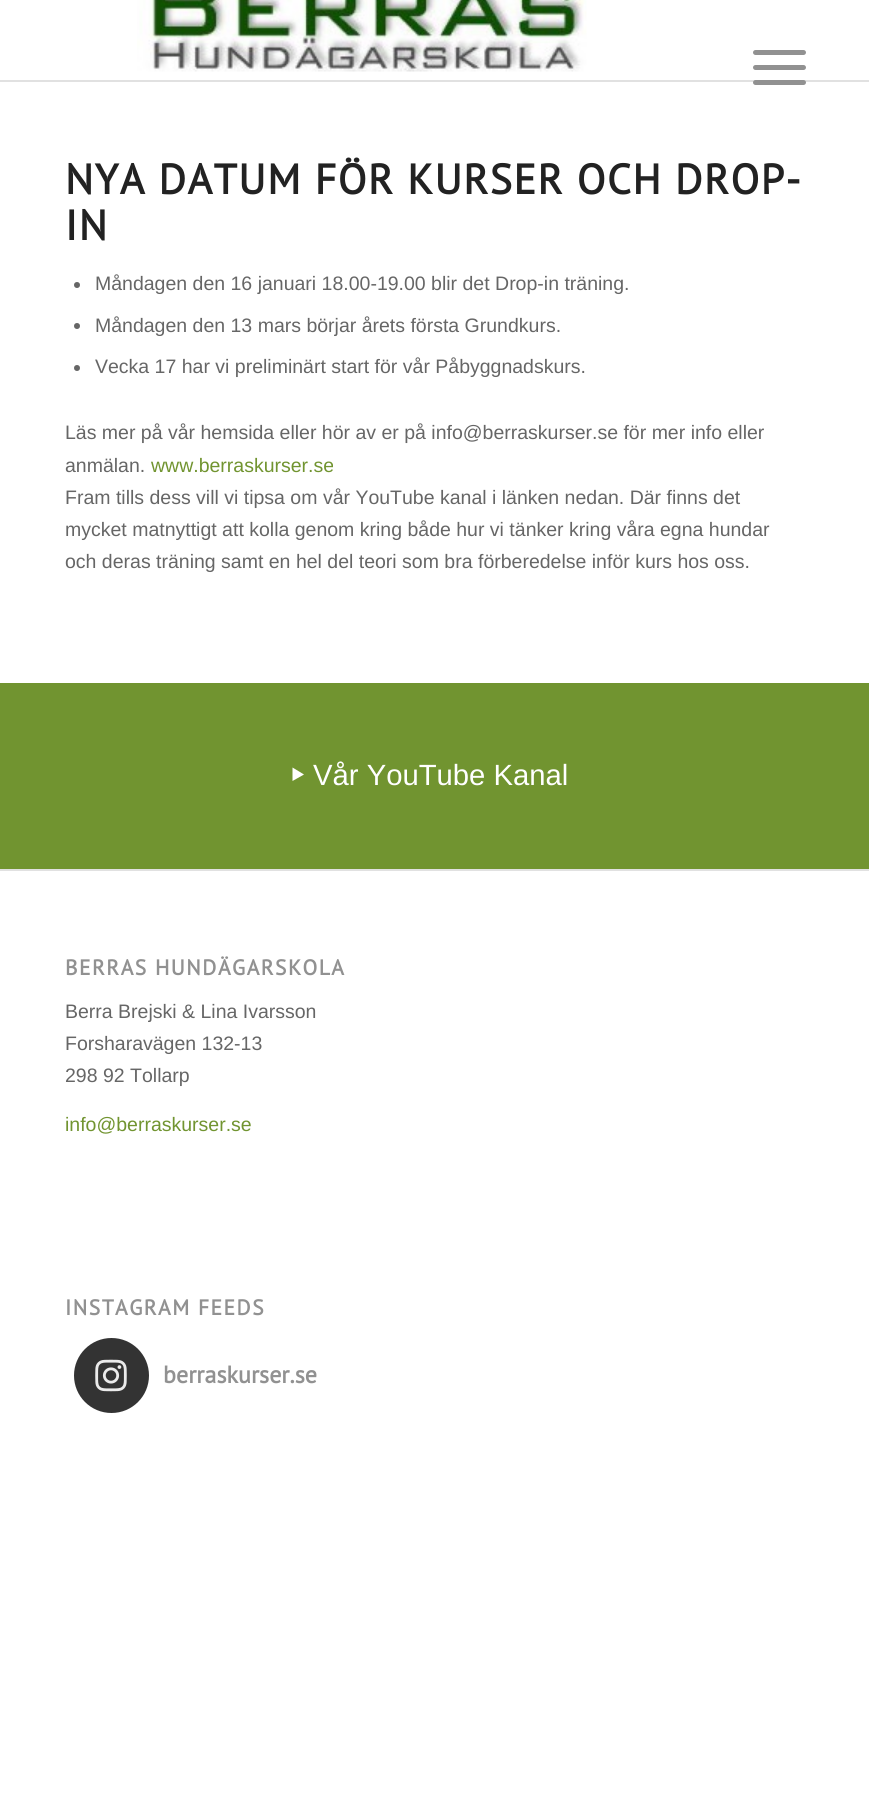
import math
import cairo


def write_spaced(ctx, x, y, s, letter, word):
	ctx.move_to(x, y)
	for ch in s:
		ctx.show_text(ch)
		ctx.rel_move_to(letter + word * (ch == ' '), 0)

def round_path(ctx, x, y, w, h, r):
	ctx.new_sub_path()
	for i, (u, v) in enumerate([(x + w - r, y + h - r), (x + r, y + h - r), (x + r, y + r), (x + w - r, y + r)]):
		ctx.arc(u, v, r, i * math.pi / 2, (i + 1) * math.pi / 2)
	ctx.close_path()

def paste(ctx, path, x, y, w, h):
	ctx.save()
	ctx.set_source_surface(cairo.ImageSurface.create_from_png(path), x, y)
	ctx.rectangle(x, y, w, h)
	ctx.fill()
	ctx.restore()

def draw(ctx):
	ctx.set_source_rgb(1, 1, 1)
	ctx.paint()
	ctx.set_source_rgb(0.882, 0.882, 0.882)
	ctx.rectangle(0, 80, 869, 2)
	ctx.fill()
	paste(ctx, 'media/1.png', 137, 0, 450, 72)
	ctx.set_source_rgb(0.569, 0.569, 0.569)
	round_path(ctx, 753, 65, 53, 5, 2.5)
	ctx.fill()
	round_path(ctx, 753, 50, 53, 5, 2.5)
	ctx.fill()
	round_path(ctx, 753, 80, 53, 5, 2.5)
	ctx.fill()
	ctx.select_font_face('PT Sans', cairo.FONT_SLANT_NORMAL, cairo.FONT_WEIGHT_BOLD)
	ctx.set_font_size(42)
	ctx.set_source_rgb(0.133, 0.133, 0.133)
	write_spaced(ctx, 65, 194, 'NYA DATUM FÖR KURSER OCH DROP-', 1.5, 0)
	write_spaced(ctx, 65, 240, 'IN', 1.5, 0)
	ctx.set_source_rgb(0.4, 0.4, 0.4)
	ctx.new_path()
	ctx.arc(77, 285, 3, 0, 2 * math.pi)
	ctx.fill()
	ctx.select_font_face('Liberation Sans')
	ctx.set_font_size(19.5)
	ctx.move_to(95, 290)
	ctx.show_text('Måndagen den 16 januari 18.00-19.00 blir det Drop-in träning.')
	ctx.new_path()
	ctx.arc(77, 326, 3, 0, 2 * math.pi)
	ctx.fill()
	ctx.move_to(95, 332)
	ctx.show_text('Måndagen den 13 mars börjar årets första Grundkurs.')
	ctx.new_path()
	ctx.arc(77, 368, 3, 0, 2 * math.pi)
	ctx.fill()
	for x, y, s in [
		(95, 373, 'Vecka 17 har vi preliminärt start för vår Påbyggnadskurs.'),
		(65, 439, 'Läs mer på vår hemsida eller hör av er på info@berraskurser.se för mer info eller'),
		(65, 472, 'anmälan.'),
	]:
		ctx.move_to(x, y)
		ctx.show_text(s)
	ctx.set_source_rgb(0.443, 0.58, 0.188)
	ctx.move_to(151, 472)
	ctx.show_text('www.berraskurser.se')
	ctx.set_source_rgb(0.4, 0.4, 0.4)
	for x, y, s in [
		(65, 504, 'Fram tills dess vill vi tipsa om vår YouTube kanal i länken nedan. Där finns det'),
		(65, 536, 'mycket matnyttigt att kolla genom kring både hur vi tänker kring våra egna hundar'),
		(65, 568, 'och deras träning samt en hel del teori som bra förberedelse inför kurs hos oss.'),
	]:
		ctx.move_to(x, y)
		ctx.show_text(s)
	ctx.set_source_rgb(0.443, 0.58, 0.188)
	ctx.rectangle(0, 683, 869, 186)
	ctx.fill()
	ctx.set_source_rgb(1, 1, 1)
	ctx.new_path()
	ctx.move_to(292.5, 767.5)
	ctx.line_to(304, 774.5)
	ctx.line_to(292.5, 781)
	ctx.close_path()
	ctx.fill()
	ctx.set_font_size(29.25)
	ctx.move_to(313, 785)
	ctx.show_text('Vår YouTube Kanal')
	ctx.set_source_rgb(0.882, 0.882, 0.882)
	ctx.rectangle(0, 869, 869, 2)
	ctx.fill()
	ctx.select_font_face('PT Sans', cairo.FONT_SLANT_NORMAL, cairo.FONT_WEIGHT_BOLD)
	ctx.set_font_size(21.5)
	ctx.set_source_rgb(0.569, 0.569, 0.569)
	write_spaced(ctx, 65, 975, 'BERRAS HUNDÄGARSKOLA', 1.5, 0)
	ctx.select_font_face('Liberation Sans')
	ctx.set_font_size(19.5)
	ctx.set_source_rgb(0.4, 0.4, 0.4)
	for x, y, s in [
		(65, 1018, 'Berra Brejski & Lina Ivarsson'),
		(65, 1050, 'Forsharavägen 132-13'),
		(65, 1082, '298 92 Tollarp'),
	]:
		ctx.move_to(x, y)
		ctx.show_text(s)
	ctx.set_source_rgb(0.443, 0.58, 0.188)
	ctx.move_to(65, 1131)
	ctx.show_text('info@berraskurser.se')
	ctx.select_font_face('PT Sans', cairo.FONT_SLANT_NORMAL, cairo.FONT_WEIGHT_BOLD)
	ctx.set_font_size(21.5)
	ctx.set_source_rgb(0.569, 0.569, 0.569)
	write_spaced(ctx, 65, 1315, 'INSTAGRAM FEEDS', 1.5, 0)
	ctx.set_source_rgb(0.2, 0.2, 0.2)
	ctx.new_path()
	ctx.arc(111.5, 1375.5, 37.5, 0, 2 * math.pi)
	ctx.fill()
	paste(ctx, 'media/2.png', 95, 1359, 32, 33)
	ctx.set_font_size(24)
	ctx.set_source_rgb(0.569, 0.569, 0.569)
	ctx.move_to(163, 1383)
	ctx.show_text('berraskurser.se')


surface = cairo.ImageSurface(cairo.FORMAT_RGB24, 869, 1819)
ctx = cairo.Context(surface)
options = cairo.FontOptions()
options.set_hint_metrics(cairo.HINT_METRICS_OFF)
options.set_hint_style(cairo.HINT_STYLE_NONE)
ctx.set_font_options(options)
ctx.set_miter_limit(4)
draw(ctx)
surface.write_to_png('image.png')
